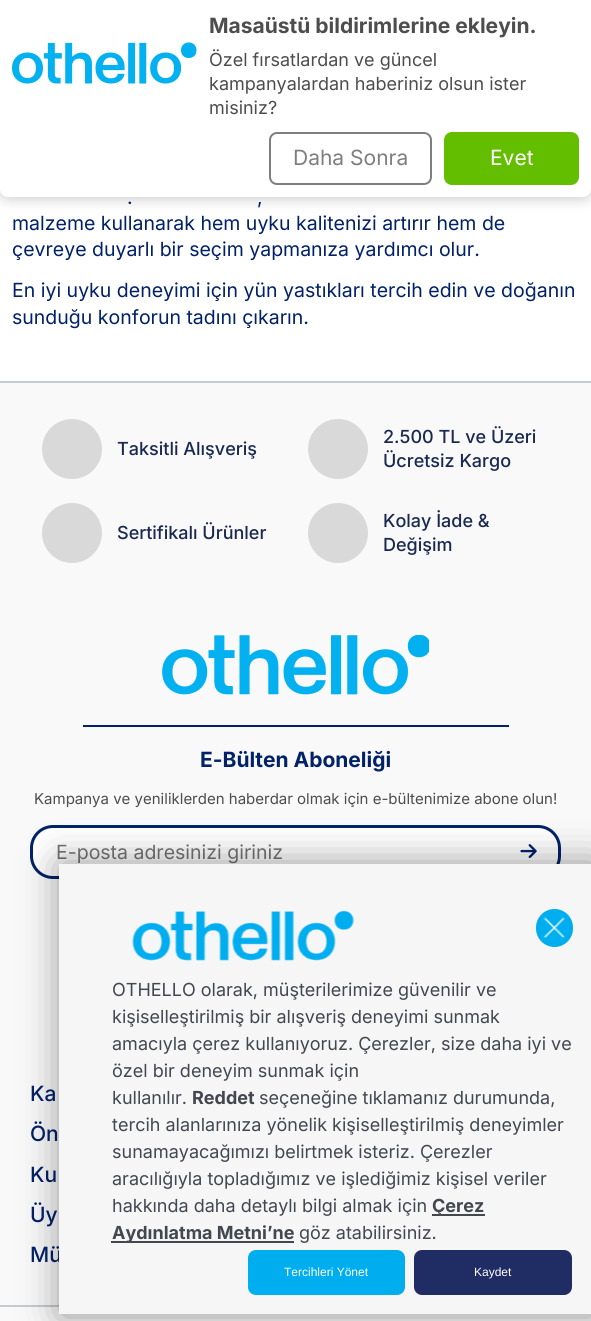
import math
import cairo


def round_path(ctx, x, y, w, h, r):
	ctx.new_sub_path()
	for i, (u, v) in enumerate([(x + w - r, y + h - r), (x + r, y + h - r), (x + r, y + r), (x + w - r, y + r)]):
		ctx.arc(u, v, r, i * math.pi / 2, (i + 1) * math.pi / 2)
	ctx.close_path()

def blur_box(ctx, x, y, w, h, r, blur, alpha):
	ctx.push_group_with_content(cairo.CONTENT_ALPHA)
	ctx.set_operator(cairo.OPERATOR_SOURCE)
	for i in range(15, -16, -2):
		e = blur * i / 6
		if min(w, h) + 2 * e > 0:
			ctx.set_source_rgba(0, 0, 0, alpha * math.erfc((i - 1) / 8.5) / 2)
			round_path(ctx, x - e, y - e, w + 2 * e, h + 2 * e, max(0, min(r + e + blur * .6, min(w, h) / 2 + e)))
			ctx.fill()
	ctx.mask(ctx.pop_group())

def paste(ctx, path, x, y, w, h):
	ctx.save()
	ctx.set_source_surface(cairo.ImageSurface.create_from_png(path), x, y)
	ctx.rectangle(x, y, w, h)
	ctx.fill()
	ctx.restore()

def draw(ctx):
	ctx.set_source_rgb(1, 1, 1)
	ctx.paint()
	ctx.set_source_rgb(0.157, 0.157, 0.157)
	blur_box(ctx, 0, 0, 591, 197, 8, 7.5, 0.3)
	ctx.set_source_rgb(1, 1, 1)
	ctx.new_path()
	ctx.move_to(0, 0)
	ctx.line_to(591, 0)
	ctx.line_to(591, 189)
	ctx.curve_to(591, 193.5, 587.5, 197, 583, 197)
	ctx.line_to(8, 197)
	ctx.curve_to(3.5, 197, 0, 193.5, 0, 189)
	ctx.close_path()
	ctx.fill()
	paste(ctx, 'media/1.png', 12, 42, 185, 42)
	ctx.select_font_face('Inter', cairo.FONT_SLANT_NORMAL, cairo.FONT_WEIGHT_BOLD)
	ctx.set_font_size(21)
	ctx.set_source_rgb(0.302, 0.302, 0.302)
	ctx.move_to(209, 33)
	ctx.show_text('Masaüstü bildirimlerine ekleyin.')
	ctx.select_font_face('Inter')
	ctx.set_font_size(18)
	for x, y, s in [
		(209, 66, 'Özel fırsatlardan ve güncel'),
		(209, 90, 'kampanyalardan haberiniz olsun ister'),
		(209, 114, 'misiniz?'),
	]:
		ctx.move_to(x, y)
		ctx.show_text(s)
	round_path(ctx, 270, 133, 161, 51, 7)
	ctx.set_source_rgb(0.494, 0.494, 0.494)
	ctx.stroke()
	ctx.set_font_size(21)
	ctx.move_to(293, 165)
	ctx.show_text('Daha Sonra')
	ctx.set_source_rgb(0.392, 0.745, 0)
	round_path(ctx, 445, 133, 133, 51, 7)
	ctx.fill_preserve()
	ctx.stroke()
	ctx.set_source_rgb(1, 1, 1)
	ctx.move_to(490, 165)
	ctx.show_text('Evet')
	ctx.set_font_size(19.5)
	ctx.set_source_rgb(0.004, 0.129, 0.412)
	for x, y, s in [
		(127, 204, '.'),
		(257, 204, ','),
		(12, 230, 'malzeme kullanarak hem uyku kalitenizi artırır hem de'),
		(12, 256, 'çevreye duyarlı bir seçim yapmanıza yardımcı olur.'),
		(12, 297, 'En iyi uyku deneyimi için yün yastıkları tercih edin ve doğanın'),
		(12, 324, 'sunduğu konforun tadını çıkarın.'),
	]:
		ctx.move_to(x, y)
		ctx.show_text(s)
	ctx.set_source_rgb(0.973, 0.976, 0.98)
	ctx.rectangle(0, 383, 591, 938)
	ctx.fill()
	ctx.set_source_rgb(0.776, 0.796, 0.816)
	ctx.rectangle(0, 381, 591, 2)
	ctx.fill()
	ctx.set_source_rgb(0.851, 0.851, 0.851)
	ctx.arc(72, 449, 30, 0, 2 * math.pi)
	ctx.fill()
	ctx.select_font_face('Inter Medium')
	ctx.set_font_size(18)
	ctx.set_source_rgb(0.098, 0.161, 0.31)
	ctx.move_to(117, 455)
	ctx.show_text('Taksitli Alışveriş')
	ctx.set_source_rgb(0.851, 0.851, 0.851)
	ctx.new_path()
	ctx.arc(338, 449, 30, 0, 2 * math.pi)
	ctx.fill()
	ctx.set_source_rgb(0.098, 0.161, 0.31)
	ctx.move_to(383, 443)
	ctx.show_text('2.500 TL ve Üzeri')
	ctx.move_to(383, 467)
	ctx.show_text('Ücretsiz Kargo')
	ctx.set_source_rgb(0.851, 0.851, 0.851)
	ctx.new_path()
	ctx.arc(72, 533, 30, 0, 2 * math.pi)
	ctx.fill()
	ctx.set_source_rgb(0.098, 0.161, 0.31)
	ctx.move_to(117, 539)
	ctx.show_text('Sertifikalı Ürünler')
	ctx.set_source_rgb(0.851, 0.851, 0.851)
	ctx.new_path()
	ctx.arc(338, 533, 30, 0, 2 * math.pi)
	ctx.fill()
	ctx.set_source_rgb(0.098, 0.161, 0.31)
	ctx.move_to(383, 527)
	ctx.show_text('Kolay İade &')
	ctx.move_to(383, 551)
	ctx.show_text('Değişim')
	paste(ctx, 'media/2.png', 162, 635, 267, 60)
	ctx.set_source_rgb(0.004, 0.129, 0.412)
	ctx.rectangle(83, 725, 426, 2)
	ctx.fill()
	ctx.select_font_face('Inter', cairo.FONT_SLANT_NORMAL, cairo.FONT_WEIGHT_BOLD)
	ctx.set_font_size(21)
	ctx.move_to(200, 767)
	ctx.show_text('E-Bülten Aboneliği')
	ctx.select_font_face('Inter')
	ctx.set_font_size(15)
	ctx.set_source_rgb(0.302, 0.302, 0.302)
	ctx.move_to(34, 804)
	ctx.show_text('Kampanya ve yeniliklerden haberdar olmak için e-bültenimize abone olun!')
	ctx.set_source_rgb(1, 1, 1)
	round_path(ctx, 31.5, 826.5, 528, 51, 21.5)
	ctx.fill_preserve()
	ctx.set_source_rgb(0.004, 0.129, 0.412)
	ctx.set_line_width(3)
	ctx.stroke()
	ctx.set_font_size(19.5)
	ctx.set_source_rgb(0.459, 0.459, 0.459)
	ctx.move_to(56, 859)
	ctx.show_text('E-posta adresinizi giriniz')
	paste(ctx, 'media/3.png', 520, 844, 17, 15)
	ctx.select_font_face('Inter Medium')
	ctx.set_font_size(21)
	ctx.set_source_rgb(0.004, 0.129, 0.412)
	for x, y, s in [
		(30, 1101, 'Ka'),
		(30, 1141, 'Ön'),
		(30, 1182, 'Ku'),
		(30, 1222, 'Üy'),
		(30, 1262, 'Mü'),
	]:
		ctx.move_to(x, y)
		ctx.show_text(s)
	ctx.set_source_rgb(0.776, 0.796, 0.816)
	ctx.rectangle(0, 1305, 59, 2)
	ctx.fill()
	ctx.set_source_rgb(0, 0, 0)
	blur_box(ctx, 60, 863, 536, 453, 0, 19, 0.41)
	ctx.set_source_rgb(0.961, 0.961, 0.961)
	ctx.rectangle(59, 864, 532, 450)
	ctx.fill()
	paste(ctx, 'media/4.png', 132, 910, 222, 51)
	ctx.set_source_rgb(0, 0.682, 0.937)
	round_path(ctx, 536, 909, 37, 38, 18.5)
	ctx.fill()
	paste(ctx, 'media/5.png', 543, 917, 22, 21)
	ctx.select_font_face('Inter')
	ctx.set_font_size(18)
	ctx.set_source_rgb(0.263, 0.278, 0.314)
	for x, y, s in [
		(112, 996, 'OTHELLO olarak, müşterilerimize güvenilir ve'),
		(112, 1023, 'kişiselleştirilmiş bir alışveriş deneyimi sunmak'),
		(112, 1050, 'amacıyla çerez kullanıyoruz. Çerezler, size daha iyi ve'),
		(112, 1077, 'özel bir deneyim sunmak için'),
		(112, 1104, 'kullanılır.'),
	]:
		ctx.move_to(x, y)
		ctx.show_text(s)
	ctx.select_font_face('Inter', cairo.FONT_SLANT_NORMAL, cairo.FONT_WEIGHT_BOLD)
	ctx.move_to(192, 1104)
	ctx.show_text('Reddet')
	ctx.select_font_face('Inter')
	for x, y, s in [
		(259, 1104, 'seçeneğine tıklamanız durumunda,'),
		(112, 1131, 'tercih alanlarınıza yönelik kişiselleştirilmiş deneyimler'),
		(112, 1158, 'sunamayacağımızı belirtmek isteriz. Çerezler'),
		(112, 1185, 'aracılığıyla topladığımız ve işlediğimiz kişisel veriler'),
		(112, 1212, 'hakkında daha detaylı bilgi almak için'),
	]:
		ctx.move_to(x, y)
		ctx.show_text(s)
	ctx.rectangle(432, 1214, 53, 2)
	ctx.fill()
	ctx.select_font_face('Inter', cairo.FONT_SLANT_NORMAL, cairo.FONT_WEIGHT_BOLD)
	ctx.move_to(432, 1212)
	ctx.show_text('Çerez')
	ctx.rectangle(111, 1241, 183, 2)
	ctx.fill()
	ctx.move_to(112, 1239)
	ctx.show_text('Aydınlatma Metni’ne')
	ctx.select_font_face('Inter')
	ctx.move_to(299, 1239)
	ctx.show_text('göz atabilirsiniz.')
	ctx.set_source_rgb(0, 0.682, 0.937)
	round_path(ctx, 248, 1250, 157, 45, 8)
	ctx.fill()
	ctx.select_font_face('Liberation Sans')
	ctx.set_font_size(12)
	ctx.set_source_rgb(1, 1, 1)
	ctx.move_to(284, 1276)
	ctx.show_text('Tercihleri Yönet')
	ctx.set_source_rgb(0.125, 0.173, 0.392)
	round_path(ctx, 414, 1250, 158, 45, 8)
	ctx.fill()
	ctx.set_source_rgb(1, 1, 1)
	ctx.move_to(474, 1276)
	ctx.show_text('Kaydet')


surface = cairo.ImageSurface(cairo.FORMAT_RGB24, 591, 1321)
ctx = cairo.Context(surface)
options = cairo.FontOptions()
options.set_hint_metrics(cairo.HINT_METRICS_OFF)
options.set_hint_style(cairo.HINT_STYLE_NONE)
ctx.set_font_options(options)
ctx.set_miter_limit(4)
draw(ctx)
surface.write_to_png('image.png')
